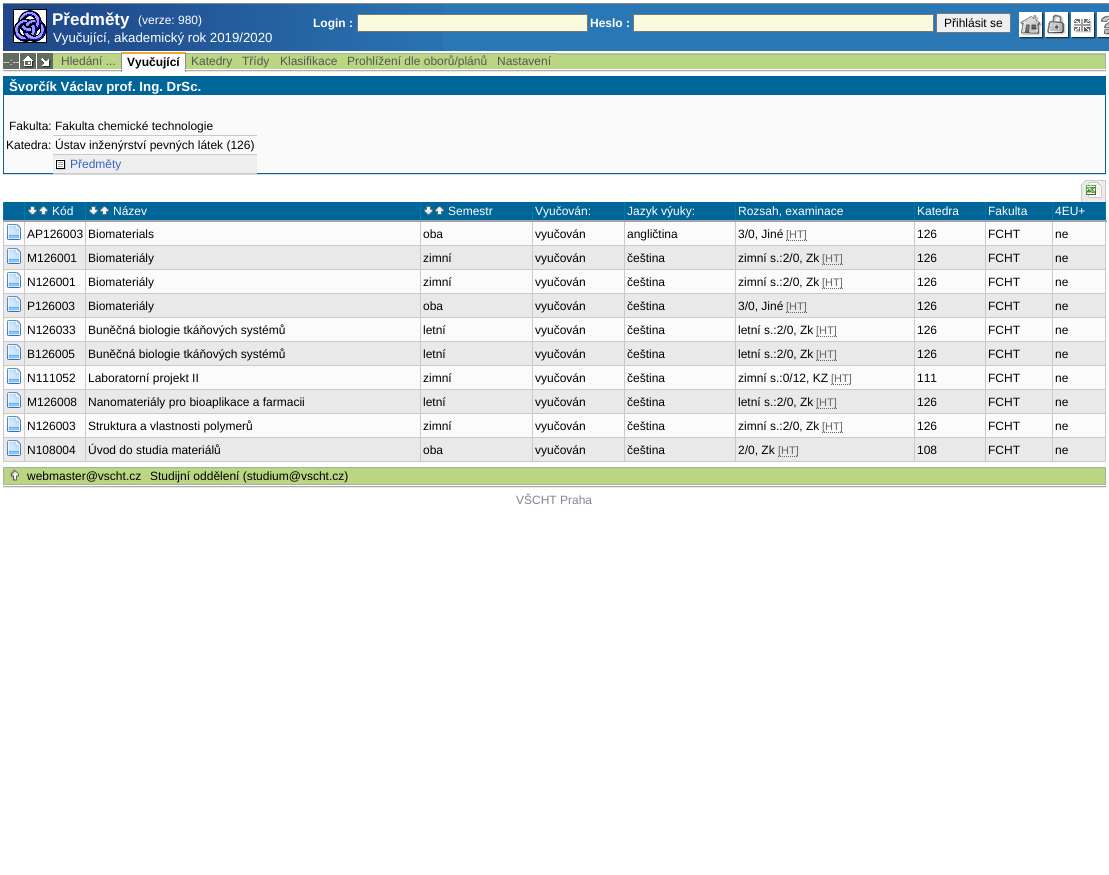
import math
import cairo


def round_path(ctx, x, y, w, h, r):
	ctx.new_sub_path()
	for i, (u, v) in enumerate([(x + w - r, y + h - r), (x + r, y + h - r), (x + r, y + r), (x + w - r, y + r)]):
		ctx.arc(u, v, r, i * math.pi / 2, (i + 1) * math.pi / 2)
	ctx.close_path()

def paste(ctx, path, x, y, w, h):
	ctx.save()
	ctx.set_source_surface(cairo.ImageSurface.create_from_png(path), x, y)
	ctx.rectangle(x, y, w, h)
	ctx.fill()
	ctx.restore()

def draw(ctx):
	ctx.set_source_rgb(1, 1, 1)
	ctx.paint()
	ctx.set_source_rgb(0.165, 0.467, 0.71)
	ctx.rectangle(443, 4, 666, 47)
	ctx.fill()
	paste(ctx, 'media/1.png', 3, 4, 440, 47)
	ctx.set_source_rgb(0.533, 0.533, 0.533)
	ctx.rectangle(3, 3, 1106, 1)
	ctx.fill()
	ctx.set_source_rgb(1, 1, 1)
	ctx.rectangle(13.5, 9.5, 33, 33)
	ctx.fill_preserve()
	ctx.set_source_rgb(0, 0, 0)
	ctx.set_line_width(1)
	ctx.stroke()
	paste(ctx, 'media/2.png', 14, 10, 32, 32)
	ctx.select_font_face('Liberation Sans', cairo.FONT_SLANT_NORMAL, cairo.FONT_WEIGHT_BOLD)
	ctx.set_font_size(17)
	ctx.set_source_rgb(1, 1, 1)
	ctx.move_to(52, 25)
	ctx.show_text('Předměty')
	ctx.select_font_face('Liberation Sans')
	ctx.set_font_size(12)
	ctx.move_to(138, 24)
	ctx.show_text('(verze: 980)')
	ctx.set_font_size(13.25)
	ctx.move_to(53, 42)
	ctx.show_text('Vyučující, akademický rok 2019/2020')
	ctx.select_font_face('Liberation Sans', cairo.FONT_SLANT_NORMAL, cairo.FONT_WEIGHT_BOLD)
	ctx.set_font_size(12)
	ctx.move_to(313, 27)
	ctx.show_text('Login :')
	ctx.set_source_rgb(0.98, 0.98, 0.863)
	ctx.rectangle(357.5, 14.5, 230, 17)
	ctx.fill_preserve()
	ctx.set_source_rgb(0.467, 0.467, 0.467)
	ctx.stroke()
	ctx.set_source_rgb(1, 1, 1)
	ctx.move_to(590, 27)
	ctx.show_text('Heslo :')
	ctx.set_source_rgb(0.98, 0.98, 0.863)
	ctx.rectangle(633.5, 14.5, 300, 17)
	ctx.fill_preserve()
	ctx.set_source_rgb(0.467, 0.467, 0.467)
	ctx.stroke()
	ctx.set_source_rgb(0.937, 0.937, 0.937)
	round_path(ctx, 936.5, 13.5, 74, 19, 1.5)
	ctx.fill_preserve()
	ctx.set_source_rgb(0.463, 0.463, 0.463)
	ctx.stroke()
	ctx.select_font_face('Liberation Sans')
	ctx.set_source_rgb(0, 0, 0)
	ctx.move_to(944, 27)
	ctx.show_text('Přihlásit se')
	paste(ctx, 'media/3.png', 1019, 12, 25, 27)
	paste(ctx, 'media/4.png', 1045, 12, 25, 27)
	paste(ctx, 'media/5.png', 1071, 12, 25, 27)
	paste(ctx, 'media/6.png', 1097, 12, 12, 27)
	ctx.set_source_rgb(0.729, 0.839, 0.514)
	ctx.rectangle(53, 52, 1053, 17)
	ctx.fill()
	ctx.set_source_rgb(0.38, 0.42, 0.376)
	ctx.rectangle(20, 53, 16, 16)
	ctx.fill()
	paste(ctx, 'media/7.png', 23, 56, 12, 12)
	ctx.rectangle(37, 53, 16, 16)
	ctx.fill()
	paste(ctx, 'media/8.png', 41, 58, 10, 10)
	ctx.set_source_rgb(1, 1, 1)
	ctx.rectangle(53, 52, 68, 1)
	ctx.fill()
	ctx.set_source_rgb(0.62, 0.714, 0.608)
	ctx.rectangle(53, 54, 3, 1)
	ctx.fill()
	ctx.set_source_rgb(0.333, 0.333, 0.333)
	ctx.move_to(347, 65)
	ctx.show_text('Prohlížení dle oborů/plánů')
	ctx.set_source_rgb(0.62, 0.714, 0.608)
	ctx.rectangle(556, 54, 550, 1)
	ctx.rectangle(1105, 54, 1, 15)
	ctx.fill()
	ctx.set_source_rgb(0.38, 0.42, 0.376)
	ctx.rectangle(3, 53, 16, 16)
	ctx.fill()
	ctx.set_font_size(10)
	ctx.set_source_rgb(1, 1, 1)
	ctx.move_to(3, 65)
	ctx.show_text('--:--')
	ctx.set_source_rgb(0.62, 0.714, 0.608)
	ctx.rectangle(56, 53, 65, 1)
	ctx.fill()
	ctx.set_font_size(12)
	ctx.set_source_rgb(0.333, 0.333, 0.333)
	ctx.move_to(61, 65)
	ctx.show_text('Hledání ...')
	ctx.set_source_rgb(0.949, 0.663, 0.184)
	ctx.new_path()
	ctx.move_to(121, 52)
	ctx.line_to(186, 52)
	ctx.line_to(185, 54)
	ctx.line_to(122, 54)
	ctx.close_path()
	ctx.fill()
	ctx.set_source_rgb(0.533, 0.533, 0.533)
	ctx.new_path()
	ctx.move_to(186, 52)
	ctx.line_to(186, 69)
	ctx.line_to(185, 69)
	ctx.line_to(185, 54)
	ctx.close_path()
	ctx.fill()
	ctx.new_path()
	ctx.move_to(121, 69)
	ctx.line_to(121, 52)
	ctx.line_to(122, 54)
	ctx.line_to(122, 69)
	ctx.close_path()
	ctx.fill()
	ctx.set_source_rgb(1, 1, 1)
	ctx.rectangle(122, 54, 63, 15)
	ctx.fill()
	ctx.select_font_face('Liberation Sans', cairo.FONT_SLANT_NORMAL, cairo.FONT_WEIGHT_BOLD)
	ctx.set_source_rgb(0, 0, 0)
	ctx.move_to(127, 66)
	ctx.show_text('Vyučující')
	ctx.set_source_rgb(1, 1, 1)
	ctx.rectangle(186, 52, 920, 1)
	ctx.fill()
	ctx.set_source_rgb(0.62, 0.714, 0.608)
	ctx.rectangle(186, 53, 370, 1)
	ctx.fill()
	ctx.select_font_face('Liberation Sans')
	ctx.set_source_rgb(0.333, 0.333, 0.333)
	for x, y, s in [
		(191, 65, 'Katedry'),
		(242, 65, 'Třídy'),
		(280, 65, 'Klasifikace'),
		(497, 65, 'Nastavení'),
	]:
		ctx.move_to(x, y)
		ctx.show_text(s)
	paste(ctx, 'media/9.png', 3, 70, 118, 2)
	ctx.set_source_rgb(0.533, 0.533, 0.533)
	ctx.rectangle(185, 70, 1, 2)
	ctx.fill()
	ctx.rectangle(121, 70, 1, 2)
	ctx.fill()
	paste(ctx, 'media/10.png', 186, 70, 920, 2)
	ctx.set_source_rgb(0.98, 0.98, 0.98)
	ctx.rectangle(4, 95, 1101, 78)
	ctx.fill()
	ctx.set_source_rgb(0, 0.4, 0.6)
	ctx.rectangle(3, 76, 1103, 2)
	ctx.rectangle(1105, 76, 1, 98)
	ctx.rectangle(3, 173, 1103, 1)
	ctx.rectangle(3, 76, 1, 98)
	ctx.rectangle(4, 78, 1101, 17)
	ctx.fill()
	ctx.select_font_face('Liberation Sans', cairo.FONT_SLANT_NORMAL, cairo.FONT_WEIGHT_BOLD)
	ctx.set_font_size(13.25)
	ctx.set_source_rgb(1, 1, 1)
	ctx.move_to(9, 91)
	ctx.show_text('Švorčík Václav prof. Ing. DrSc.')
	ctx.select_font_face('Liberation Sans')
	ctx.set_font_size(12)
	ctx.set_source_rgb(0, 0, 0)
	ctx.move_to(9, 130)
	ctx.show_text('Fakulta:')
	ctx.set_source_rgb(0.792, 0.792, 0.792)
	ctx.rectangle(53, 135, 204, 1)
	ctx.fill()
	ctx.set_source_rgb(0, 0, 0)
	ctx.move_to(55, 130)
	ctx.show_text('Fakulta chemické technologie')
	ctx.move_to(6, 149)
	ctx.show_text('Katedra:')
	ctx.set_source_rgb(0.792, 0.792, 0.792)
	ctx.rectangle(53, 154, 204, 1)
	ctx.fill()
	ctx.set_source_rgb(0, 0, 0)
	ctx.move_to(55, 149)
	ctx.show_text('Ústav inženýrství pevných látek (126)')
	ctx.set_source_rgb(0.933, 0.933, 0.933)
	ctx.rectangle(53, 155, 204, 18)
	ctx.fill()
	ctx.set_source_rgb(0.792, 0.792, 0.792)
	ctx.rectangle(53, 173, 204, 1)
	ctx.fill()
	paste(ctx, 'media/11.png', 55, 159, 11, 11)
	ctx.set_source_rgb(0.2, 0.392, 0.792)
	ctx.move_to(70, 168)
	ctx.show_text('Předměty')
	ctx.set_source_rgb(0.855, 0.855, 0.855)
	ctx.rectangle(3, 174, 1103, 1)
	ctx.fill()
	paste(ctx, 'media/12.png', 1081, 181, 4, 21)
	ctx.set_source_rgb(0.918, 0.918, 0.918)
	ctx.rectangle(1085, 181, 20, 21)
	ctx.fill()
	ctx.set_source_rgb(0.792, 0.792, 0.792)
	ctx.rectangle(1085, 180, 21, 1)
	ctx.rectangle(1105, 180, 1, 22)
	ctx.fill()
	paste(ctx, 'media/13.png', 1086, 182, 16, 16)
	ctx.set_source_rgb(0, 0.4, 0.6)
	ctx.rectangle(4, 202, 1101, 18)
	ctx.fill()
	ctx.set_source_rgb(0.792, 0.792, 0.792)
	ctx.rectangle(3, 245, 1103, 1)
	ctx.rectangle(3, 269, 1103, 1)
	ctx.rectangle(3, 293, 1103, 1)
	ctx.rectangle(3, 317, 1103, 1)
	ctx.rectangle(3, 341, 1103, 1)
	ctx.rectangle(3, 365, 1103, 1)
	ctx.rectangle(3, 389, 1103, 1)
	ctx.rectangle(3, 413, 1103, 1)
	ctx.rectangle(3, 437, 1103, 1)
	ctx.rectangle(1105, 437, 1, 25)
	ctx.rectangle(3, 461, 1103, 1)
	ctx.rectangle(3, 437, 1, 25)
	ctx.rectangle(3, 413, 1, 25)
	ctx.rectangle(3, 389, 1, 25)
	ctx.rectangle(3, 365, 1, 25)
	ctx.rectangle(3, 341, 1, 25)
	ctx.rectangle(3, 317, 1, 25)
	ctx.rectangle(3, 293, 1, 25)
	ctx.rectangle(3, 269, 1, 25)
	ctx.rectangle(3, 221, 1, 49)
	ctx.fill()
	ctx.set_source_rgb(0, 0.467, 0.667)
	ctx.rectangle(3, 202, 1, 20)
	ctx.fill()
	ctx.set_source_rgb(0.984, 0.984, 0.984)
	ctx.rectangle(4, 222, 1101, 23)
	ctx.fill()
	ctx.set_source_rgb(0.914, 0.914, 0.914)
	ctx.rectangle(4, 246, 1101, 23)
	ctx.fill()
	ctx.set_source_rgb(0.984, 0.984, 0.984)
	ctx.rectangle(4, 270, 1101, 23)
	ctx.fill()
	ctx.set_source_rgb(0.914, 0.914, 0.914)
	ctx.rectangle(4, 294, 1101, 23)
	ctx.fill()
	ctx.set_source_rgb(0.984, 0.984, 0.984)
	ctx.rectangle(4, 318, 1101, 23)
	ctx.fill()
	ctx.set_source_rgb(0.914, 0.914, 0.914)
	ctx.rectangle(4, 342, 1101, 23)
	ctx.fill()
	ctx.set_source_rgb(0.984, 0.984, 0.984)
	ctx.rectangle(4, 366, 1101, 23)
	ctx.fill()
	ctx.set_source_rgb(0.914, 0.914, 0.914)
	ctx.rectangle(4, 390, 1101, 23)
	ctx.fill()
	ctx.set_source_rgb(0.984, 0.984, 0.984)
	ctx.rectangle(4, 414, 1101, 23)
	ctx.fill()
	ctx.set_source_rgb(0.914, 0.914, 0.914)
	ctx.rectangle(4, 438, 1101, 23)
	ctx.fill()
	ctx.set_source_rgb(0.792, 0.792, 0.792)
	ctx.rectangle(24, 221, 1, 241)
	ctx.fill()
	ctx.set_source_rgb(0, 0.467, 0.667)
	ctx.rectangle(24, 202, 1, 20)
	ctx.fill()
	ctx.set_source_rgb(0.792, 0.792, 0.792)
	ctx.rectangle(85, 221, 1, 241)
	ctx.fill()
	ctx.set_source_rgb(0, 0.467, 0.667)
	ctx.rectangle(85, 202, 1, 20)
	ctx.fill()
	ctx.set_source_rgb(0.792, 0.792, 0.792)
	ctx.rectangle(420, 221, 1, 241)
	ctx.fill()
	ctx.set_source_rgb(0, 0.467, 0.667)
	ctx.rectangle(420, 202, 1, 20)
	ctx.fill()
	ctx.set_source_rgb(0.792, 0.792, 0.792)
	ctx.rectangle(532, 221, 1, 241)
	ctx.fill()
	ctx.set_source_rgb(0, 0.467, 0.667)
	ctx.rectangle(532, 202, 1, 20)
	ctx.fill()
	ctx.set_source_rgb(0.792, 0.792, 0.792)
	ctx.rectangle(624, 221, 1, 241)
	ctx.fill()
	ctx.set_source_rgb(0, 0.467, 0.667)
	ctx.rectangle(624, 202, 1, 20)
	ctx.fill()
	ctx.set_source_rgb(0.792, 0.792, 0.792)
	ctx.rectangle(735, 221, 1, 241)
	ctx.fill()
	ctx.set_source_rgb(0, 0.467, 0.667)
	ctx.rectangle(735, 202, 1, 20)
	ctx.fill()
	ctx.set_source_rgb(0.792, 0.792, 0.792)
	ctx.rectangle(914, 221, 1, 241)
	ctx.fill()
	ctx.set_source_rgb(0, 0.467, 0.667)
	ctx.rectangle(914, 202, 1, 20)
	ctx.fill()
	ctx.set_source_rgb(0.792, 0.792, 0.792)
	ctx.rectangle(985, 221, 1, 241)
	ctx.fill()
	ctx.set_source_rgb(0, 0.467, 0.667)
	ctx.rectangle(985, 202, 1, 20)
	ctx.fill()
	ctx.set_source_rgb(0.792, 0.792, 0.792)
	ctx.rectangle(1105, 413, 1, 25)
	ctx.rectangle(1105, 389, 1, 25)
	ctx.rectangle(1105, 365, 1, 25)
	ctx.rectangle(1105, 341, 1, 25)
	ctx.rectangle(1105, 317, 1, 25)
	ctx.rectangle(1105, 293, 1, 25)
	ctx.rectangle(1105, 269, 1, 25)
	ctx.rectangle(1105, 221, 1, 49)
	ctx.fill()
	ctx.set_source_rgb(0, 0.467, 0.667)
	ctx.rectangle(1105, 202, 1, 20)
	ctx.fill()
	ctx.set_source_rgb(0.792, 0.792, 0.792)
	ctx.rectangle(1052, 221, 1, 241)
	ctx.fill()
	ctx.set_source_rgb(0, 0.467, 0.667)
	ctx.rectangle(1052, 202, 1, 20)
	ctx.fill()
	ctx.set_source_rgb(0.647, 0.647, 0.647)
	ctx.rectangle(3, 220, 1104, 2)
	ctx.fill()
	paste(ctx, 'media/14.png', 28, 206, 9, 9)
	paste(ctx, 'media/15.png', 39, 206, 9, 9)
	ctx.set_source_rgb(1, 1, 1)
	ctx.move_to(52, 215)
	ctx.show_text('Kód')
	paste(ctx, 'media/14.png', 89, 206, 9, 9)
	paste(ctx, 'media/15.png', 100, 206, 9, 9)
	ctx.move_to(113, 215)
	ctx.show_text('Název')
	paste(ctx, 'media/14.png', 424, 206, 9, 9)
	paste(ctx, 'media/15.png', 435, 206, 9, 9)
	for x, y, s in [
		(448, 215, 'Semestr'),
		(535, 215, 'Vyučován:'),
		(627, 215, 'Jazyk výuky:'),
		(738, 215, 'Rozsah, examinace'),
		(917, 215, 'Katedra'),
		(988, 215, 'Fakulta'),
		(1055, 215, '4EU+'),
	]:
		ctx.move_to(x, y)
		ctx.show_text(s)
	paste(ctx, 'media/16.png', 7, 224, 14, 16)
	ctx.set_source_rgb(0, 0, 0)
	for x, y, s in [
		(27, 238, 'AP126003'),
		(88, 238, 'Biomaterials'),
		(423, 238, 'oba'),
		(535, 238, 'vyučován'),
		(627, 238, 'angličtina'),
		(738, 238, '3/0, Jiné'),
	]:
		ctx.move_to(x, y)
		ctx.show_text(s)
	ctx.new_path()
	ctx.move_to(786, 240.5)
	ctx.line_to(807, 240.5)
	ctx.set_source_rgb(0.4, 0.4, 0.4)
	ctx.set_dash([1, 1])
	ctx.stroke()
	ctx.set_font_size(11)
	ctx.move_to(786, 238)
	ctx.show_text('[HT]')
	ctx.set_font_size(12)
	ctx.set_source_rgb(0, 0, 0)
	for x, y, s in [
		(917, 238, '126'),
		(988, 238, 'FCHT'),
		(1055, 238, 'ne'),
	]:
		ctx.move_to(x, y)
		ctx.show_text(s)
	paste(ctx, 'media/17.png', 7, 248, 14, 16)
	for x, y, s in [
		(27, 262, 'M126001'),
		(88, 262, 'Biomateriály'),
		(423, 262, 'zimní'),
		(535, 262, 'vyučován'),
		(627, 262, 'čeština'),
		(738, 262, 'zimní s.:2/0, Zk'),
	]:
		ctx.move_to(x, y)
		ctx.show_text(s)
	ctx.new_path()
	ctx.move_to(822, 264.5)
	ctx.line_to(843, 264.5)
	ctx.set_source_rgb(0.4, 0.4, 0.4)
	ctx.stroke()
	ctx.set_font_size(11)
	ctx.move_to(822, 262)
	ctx.show_text('[HT]')
	ctx.set_font_size(12)
	ctx.set_source_rgb(0, 0, 0)
	for x, y, s in [
		(917, 262, '126'),
		(988, 262, 'FCHT'),
		(1055, 262, 'ne'),
	]:
		ctx.move_to(x, y)
		ctx.show_text(s)
	paste(ctx, 'media/16.png', 7, 272, 14, 16)
	for x, y, s in [
		(27, 286, 'N126001'),
		(88, 286, 'Biomateriály'),
		(423, 286, 'zimní'),
		(535, 286, 'vyučován'),
		(627, 286, 'čeština'),
		(738, 286, 'zimní s.:2/0, Zk'),
	]:
		ctx.move_to(x, y)
		ctx.show_text(s)
	ctx.new_path()
	ctx.move_to(822, 288.5)
	ctx.line_to(843, 288.5)
	ctx.set_source_rgb(0.4, 0.4, 0.4)
	ctx.stroke()
	ctx.set_font_size(11)
	ctx.move_to(822, 286)
	ctx.show_text('[HT]')
	ctx.set_font_size(12)
	ctx.set_source_rgb(0, 0, 0)
	for x, y, s in [
		(917, 286, '126'),
		(988, 286, 'FCHT'),
		(1055, 286, 'ne'),
	]:
		ctx.move_to(x, y)
		ctx.show_text(s)
	paste(ctx, 'media/17.png', 7, 296, 14, 16)
	for x, y, s in [
		(27, 310, 'P126003'),
		(88, 310, 'Biomateriály'),
		(423, 310, 'oba'),
		(535, 310, 'vyučován'),
		(627, 310, 'čeština'),
		(738, 310, '3/0, Jiné'),
	]:
		ctx.move_to(x, y)
		ctx.show_text(s)
	ctx.new_path()
	ctx.move_to(786, 312.5)
	ctx.line_to(807, 312.5)
	ctx.set_source_rgb(0.4, 0.4, 0.4)
	ctx.stroke()
	ctx.set_font_size(11)
	ctx.move_to(786, 310)
	ctx.show_text('[HT]')
	ctx.set_font_size(12)
	ctx.set_source_rgb(0, 0, 0)
	for x, y, s in [
		(917, 310, '126'),
		(988, 310, 'FCHT'),
		(1055, 310, 'ne'),
	]:
		ctx.move_to(x, y)
		ctx.show_text(s)
	paste(ctx, 'media/16.png', 7, 320, 14, 16)
	for x, y, s in [
		(27, 334, 'N126033'),
		(88, 334, 'Buněčná biologie tkáňových systémů'),
		(423, 334, 'letní'),
		(535, 334, 'vyučován'),
		(627, 334, 'čeština'),
		(738, 334, 'letní s.:2/0, Zk'),
	]:
		ctx.move_to(x, y)
		ctx.show_text(s)
	ctx.new_path()
	ctx.move_to(816, 336.5)
	ctx.line_to(837, 336.5)
	ctx.set_source_rgb(0.4, 0.4, 0.4)
	ctx.stroke()
	ctx.set_font_size(11)
	ctx.move_to(816, 334)
	ctx.show_text('[HT]')
	ctx.set_font_size(12)
	ctx.set_source_rgb(0, 0, 0)
	for x, y, s in [
		(917, 334, '126'),
		(988, 334, 'FCHT'),
		(1055, 334, 'ne'),
	]:
		ctx.move_to(x, y)
		ctx.show_text(s)
	paste(ctx, 'media/17.png', 7, 344, 14, 16)
	for x, y, s in [
		(27, 358, 'B126005'),
		(88, 358, 'Buněčná biologie tkáňových systémů'),
		(423, 358, 'letní'),
		(535, 358, 'vyučován'),
		(627, 358, 'čeština'),
		(738, 358, 'letní s.:2/0, Zk'),
	]:
		ctx.move_to(x, y)
		ctx.show_text(s)
	ctx.new_path()
	ctx.move_to(816, 360.5)
	ctx.line_to(837, 360.5)
	ctx.set_source_rgb(0.4, 0.4, 0.4)
	ctx.stroke()
	ctx.set_font_size(11)
	ctx.move_to(816, 358)
	ctx.show_text('[HT]')
	ctx.set_font_size(12)
	ctx.set_source_rgb(0, 0, 0)
	for x, y, s in [
		(917, 358, '126'),
		(988, 358, 'FCHT'),
		(1055, 358, 'ne'),
	]:
		ctx.move_to(x, y)
		ctx.show_text(s)
	paste(ctx, 'media/16.png', 7, 368, 14, 16)
	for x, y, s in [
		(27, 382, 'N111052'),
		(88, 382, 'Laboratorní projekt II'),
		(423, 382, 'zimní'),
		(535, 382, 'vyučován'),
		(627, 382, 'čeština'),
		(738, 382, 'zimní s.:0/12, KZ'),
	]:
		ctx.move_to(x, y)
		ctx.show_text(s)
	ctx.new_path()
	ctx.move_to(831, 384.5)
	ctx.line_to(851, 384.5)
	ctx.set_source_rgb(0.4, 0.4, 0.4)
	ctx.stroke()
	ctx.set_font_size(11)
	ctx.move_to(831, 382)
	ctx.show_text('[HT]')
	ctx.set_font_size(12)
	ctx.set_source_rgb(0, 0, 0)
	for x, y, s in [
		(917, 382, '111'),
		(988, 382, 'FCHT'),
		(1055, 382, 'ne'),
	]:
		ctx.move_to(x, y)
		ctx.show_text(s)
	paste(ctx, 'media/17.png', 7, 392, 14, 16)
	for x, y, s in [
		(27, 406, 'M126008'),
		(88, 406, 'Nanomateriály pro bioaplikace a farmacii'),
		(423, 406, 'letní'),
		(535, 406, 'vyučován'),
		(627, 406, 'čeština'),
		(738, 406, 'letní s.:2/0, Zk'),
	]:
		ctx.move_to(x, y)
		ctx.show_text(s)
	ctx.new_path()
	ctx.move_to(816, 408.5)
	ctx.line_to(837, 408.5)
	ctx.set_source_rgb(0.4, 0.4, 0.4)
	ctx.stroke()
	ctx.set_font_size(11)
	ctx.move_to(816, 406)
	ctx.show_text('[HT]')
	ctx.set_font_size(12)
	ctx.set_source_rgb(0, 0, 0)
	for x, y, s in [
		(917, 406, '126'),
		(988, 406, 'FCHT'),
		(1055, 406, 'ne'),
	]:
		ctx.move_to(x, y)
		ctx.show_text(s)
	paste(ctx, 'media/16.png', 7, 416, 14, 16)
	for x, y, s in [
		(27, 430, 'N126003'),
		(88, 430, 'Struktura a vlastnosti polymerů'),
		(423, 430, 'zimní'),
		(535, 430, 'vyučován'),
		(627, 430, 'čeština'),
		(738, 430, 'zimní s.:2/0, Zk'),
	]:
		ctx.move_to(x, y)
		ctx.show_text(s)
	ctx.new_path()
	ctx.move_to(822, 432.5)
	ctx.line_to(843, 432.5)
	ctx.set_source_rgb(0.4, 0.4, 0.4)
	ctx.stroke()
	ctx.set_font_size(11)
	ctx.move_to(822, 430)
	ctx.show_text('[HT]')
	ctx.set_font_size(12)
	ctx.set_source_rgb(0, 0, 0)
	for x, y, s in [
		(917, 430, '126'),
		(988, 430, 'FCHT'),
		(1055, 430, 'ne'),
	]:
		ctx.move_to(x, y)
		ctx.show_text(s)
	paste(ctx, 'media/17.png', 7, 440, 14, 16)
	for x, y, s in [
		(27, 454, 'N108004'),
		(88, 454, 'Úvod do studia materiálů'),
		(423, 454, 'oba'),
		(535, 454, 'vyučován'),
		(627, 454, 'čeština'),
		(738, 454, '2/0, Zk'),
	]:
		ctx.move_to(x, y)
		ctx.show_text(s)
	ctx.new_path()
	ctx.move_to(778, 456.5)
	ctx.line_to(798, 456.5)
	ctx.set_source_rgb(0.4, 0.4, 0.4)
	ctx.stroke()
	ctx.set_font_size(11)
	ctx.move_to(778, 454)
	ctx.show_text('[HT]')
	ctx.set_font_size(12)
	ctx.set_source_rgb(0, 0, 0)
	for x, y, s in [
		(917, 454, '108'),
		(988, 454, 'FCHT'),
		(1055, 454, 'ne'),
	]:
		ctx.move_to(x, y)
		ctx.show_text(s)
	ctx.rectangle(3.5, 467.5, 1102, 17)
	ctx.set_source_rgb(0.62, 0.714, 0.608)
	ctx.set_dash([])
	ctx.stroke()
	ctx.set_source_rgb(0.729, 0.839, 0.514)
	ctx.rectangle(4, 468, 1101, 16)
	ctx.fill()
	paste(ctx, 'media/18.png', 9, 469, 10, 12)
	ctx.set_source_rgb(0, 0, 0)
	ctx.move_to(27, 480)
	ctx.show_text('webmaster@vscht.cz')
	ctx.move_to(150, 480)
	ctx.show_text('Studijní oddělení (studium@vscht.cz)')
	paste(ctx, 'media/19.png', 3, 486, 1103, 2)
	ctx.set_source_rgb(0.51, 0.518, 0.565)
	ctx.move_to(516, 504)
	ctx.show_text('VŠCHT Praha')


surface = cairo.ImageSurface(cairo.FORMAT_RGB24, 1109, 875)
ctx = cairo.Context(surface)
options = cairo.FontOptions()
options.set_hint_metrics(cairo.HINT_METRICS_OFF)
options.set_hint_style(cairo.HINT_STYLE_NONE)
ctx.set_font_options(options)
ctx.set_miter_limit(4)
draw(ctx)
surface.write_to_png('image.png')
